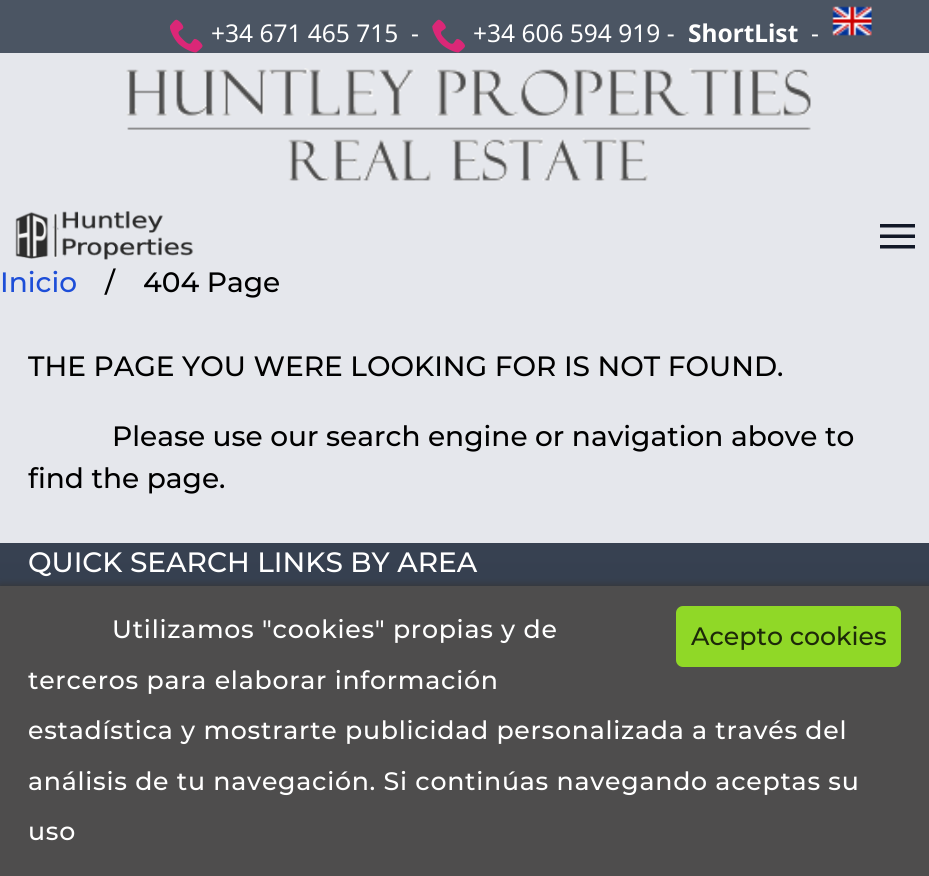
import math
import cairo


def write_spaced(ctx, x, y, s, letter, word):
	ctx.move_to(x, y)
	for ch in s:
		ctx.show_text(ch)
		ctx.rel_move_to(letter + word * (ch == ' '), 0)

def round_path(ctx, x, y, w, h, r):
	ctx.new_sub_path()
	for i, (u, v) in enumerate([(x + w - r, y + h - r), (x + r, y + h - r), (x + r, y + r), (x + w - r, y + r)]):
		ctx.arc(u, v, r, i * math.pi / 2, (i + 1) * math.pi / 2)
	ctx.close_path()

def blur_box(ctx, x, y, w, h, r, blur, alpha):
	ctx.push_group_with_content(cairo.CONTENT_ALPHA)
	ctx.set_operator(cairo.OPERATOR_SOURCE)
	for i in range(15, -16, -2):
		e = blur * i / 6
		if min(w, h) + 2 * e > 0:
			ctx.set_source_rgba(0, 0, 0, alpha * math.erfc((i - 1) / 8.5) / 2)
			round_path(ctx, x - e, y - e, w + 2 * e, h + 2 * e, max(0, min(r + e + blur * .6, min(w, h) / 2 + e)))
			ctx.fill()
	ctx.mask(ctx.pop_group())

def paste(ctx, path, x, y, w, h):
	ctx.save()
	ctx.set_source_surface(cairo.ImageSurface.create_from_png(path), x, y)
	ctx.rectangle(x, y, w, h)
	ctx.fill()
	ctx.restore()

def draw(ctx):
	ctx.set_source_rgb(0.898, 0.906, 0.922)
	ctx.paint()
	ctx.set_source_rgb(0.294, 0.333, 0.388)
	ctx.rectangle(0, 0, 929, 53)
	ctx.fill()
	paste(ctx, 'media/1.png', 170, 19, 33, 34)
	ctx.select_font_face('Noto Sans')
	ctx.set_font_size(24.5)
	ctx.set_source_rgb(1, 1, 1)
	ctx.move_to(211, 42)
	ctx.show_text('+34 671 465 715  -')
	paste(ctx, 'media/2.png', 432, 19, 33, 34)
	ctx.move_to(473, 42)
	ctx.show_text('+34 606 594 919 -')
	ctx.select_font_face('Noto Sans', cairo.FONT_SLANT_NORMAL, cairo.FONT_WEIGHT_BOLD)
	ctx.move_to(688, 42)
	ctx.show_text('ShortList')
	ctx.select_font_face('Noto Sans')
	ctx.move_to(811, 42)
	ctx.show_text('-')
	paste(ctx, 'media/3.png', 832, 6, 40, 30)
	paste(ctx, 'media/4.png', 126, 68, 685, 113)
	paste(ctx, 'media/5.png', 15, 211, 179, 49)
	ctx.set_source_rgb(0.067, 0.094, 0.153)
	ctx.new_path()
	ctx.move_to(880, 224)
	ctx.line_to(915, 224)
	ctx.line_to(915, 227.5)
	ctx.line_to(880, 227.5)
	ctx.close_path()
	ctx.move_to(880, 234.5)
	ctx.line_to(915, 234.5)
	ctx.line_to(915, 238)
	ctx.line_to(880, 238)
	ctx.close_path()
	ctx.move_to(880, 245)
	ctx.line_to(915, 245)
	ctx.line_to(915, 248.5)
	ctx.line_to(880, 248.5)
	ctx.close_path()
	ctx.fill()
	ctx.select_font_face('Montserrat Medium')
	ctx.set_font_size(28)
	ctx.set_source_rgb(0.114, 0.306, 0.847)
	ctx.move_to(0, 292)
	ctx.show_text('Inicio')
	ctx.set_source_rgb(0, 0, 0)
	for x, y, s in [
		(105, 292, '/'),
		(143, 292, '404 Page'),
		(28, 376, 'THE PAGE YOU WERE LOOKING FOR IS NOT FOUND.'),
		(112, 446, 'Please use our search engine or navigation above to'),
		(28, 488, 'find the page.'),
	]:
		ctx.move_to(x, y)
		ctx.show_text(s)
	gradient = cairo.LinearGradient(465, 542, 465, 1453)
	gradient.add_color_stop_rgba(0, 0.216, 0.255, 0.318, 1)
	gradient.add_color_stop_rgba(1, 0.122, 0.161, 0.216, 1)
	ctx.set_source(gradient)
	ctx.rectangle(0, 543, 929, 43)
	ctx.fill()
	ctx.set_source_rgb(1, 1, 1)
	ctx.move_to(28, 572)
	ctx.show_text('QUICK SEARCH LINKS BY AREA')
	ctx.set_source_rgb(0.212, 0.208, 0.208)
	blur_box(ctx, 0, 585, 929, 290, 0, 3.5, 1)
	ctx.set_source_rgb(0.306, 0.302, 0.302)
	ctx.rectangle(0, 586, 929, 290)
	ctx.fill()
	ctx.set_font_size(25.2)
	ctx.set_source_rgb(1, 1, 1)
	for x, y, s in [
		(112, 638, 'Utilizamos "cookies" propias y de'),
		(28, 689, 'terceros para elaborar información'),
		(28, 739, 'estadística y mostrarte publicidad personalizada a través del'),
		(28, 790, 'análisis de tu navegación. Si continúas navegando aceptas su'),
		(28, 840, 'uso'),
	]:
		write_spaced(ctx, x, y, s, 0.75, 0)
	ctx.set_source_rgb(0.565, 0.847, 0.153)
	round_path(ctx, 676, 606, 225, 61, 7)
	ctx.fill()
	ctx.set_source_rgb(0.114, 0.161, 0.039)
	ctx.move_to(691, 645)
	ctx.show_text('Acepto cookies')


surface = cairo.ImageSurface(cairo.FORMAT_RGB24, 929, 876)
ctx = cairo.Context(surface)
options = cairo.FontOptions()
options.set_hint_metrics(cairo.HINT_METRICS_OFF)
options.set_hint_style(cairo.HINT_STYLE_NONE)
ctx.set_font_options(options)
ctx.set_miter_limit(4)
draw(ctx)
surface.write_to_png('image.png')
